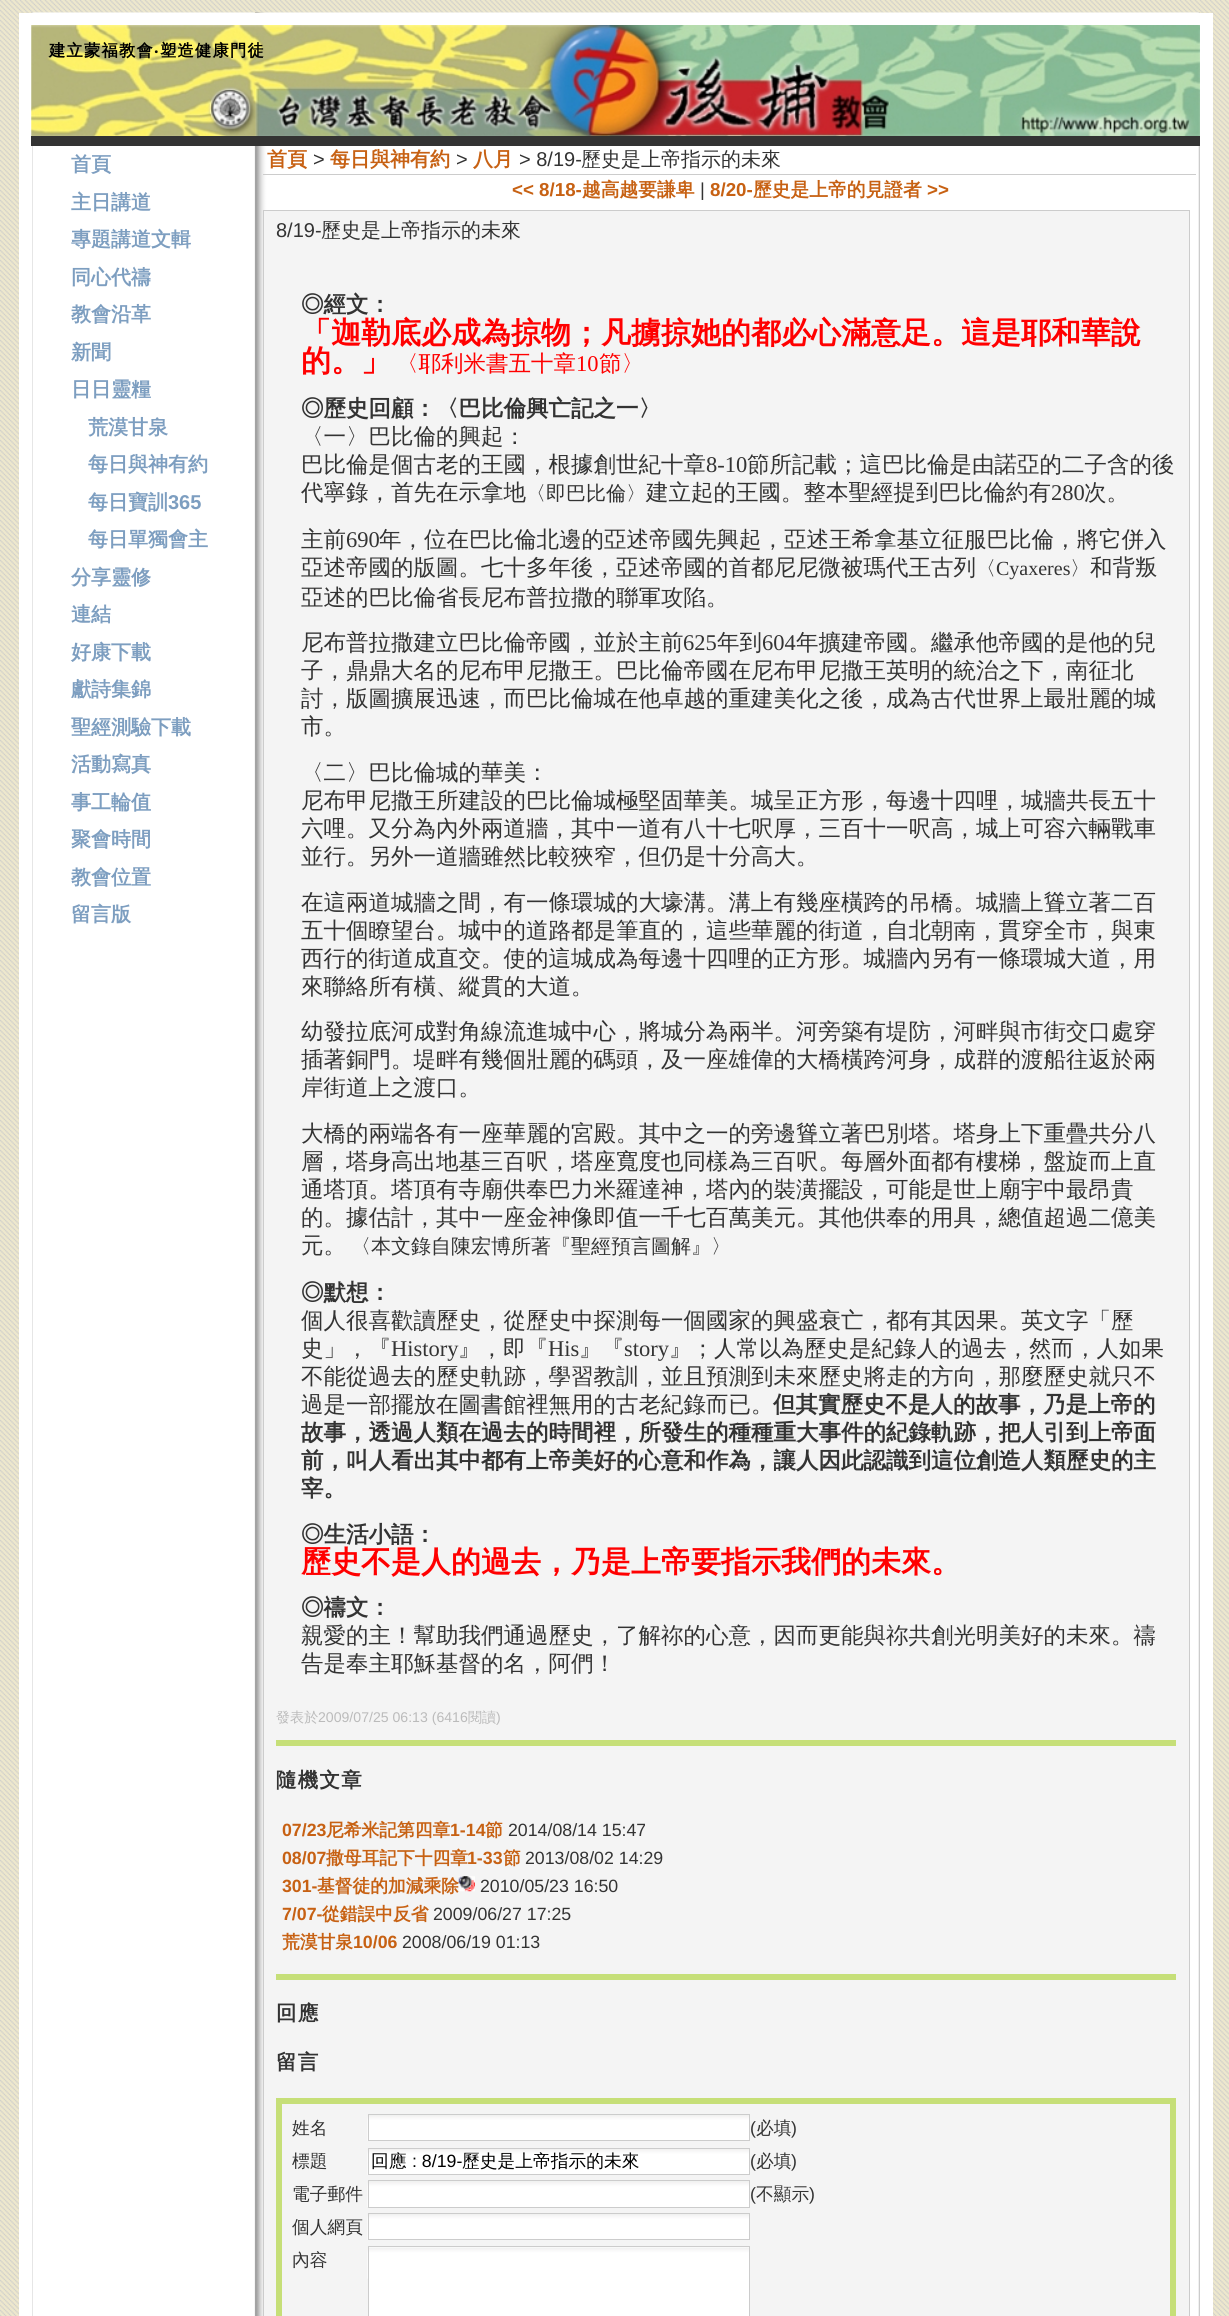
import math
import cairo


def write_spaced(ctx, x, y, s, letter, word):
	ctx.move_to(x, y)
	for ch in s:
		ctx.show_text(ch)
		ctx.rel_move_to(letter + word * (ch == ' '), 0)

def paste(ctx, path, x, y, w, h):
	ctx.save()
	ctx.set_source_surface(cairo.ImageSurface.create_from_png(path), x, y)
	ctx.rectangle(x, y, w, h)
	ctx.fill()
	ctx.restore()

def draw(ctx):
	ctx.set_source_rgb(1, 1, 1)
	ctx.paint()
	paste(ctx, 'media/1.png', 0, 0, 1229, 2316)
	paste(ctx, 'media/2.png', 31, 12, 1169, 2304)
	ctx.rectangle(25.5, 19.5, 1181, 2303)
	ctx.set_source_rgb(1, 1, 1)
	ctx.set_line_width(13)
	ctx.stroke()
	paste(ctx, 'media/3.png', 31, 25, 1169, 111)
	ctx.set_source_rgb(0.2, 0.2, 0.2)
	ctx.rectangle(31, 136, 1169, 10)
	ctx.fill()
	ctx.select_font_face('WenQuanYi Zen Hei', cairo.FONT_SLANT_NORMAL, cairo.FONT_WEIGHT_BOLD)
	ctx.set_font_size(16.25)
	ctx.set_source_rgb(0, 0, 0)
	write_spaced(ctx, 49, 56, '建立蒙福教會', 1.25, 0)
	ctx.select_font_face('Noto Sans', cairo.FONT_SLANT_NORMAL, cairo.FONT_WEIGHT_BOLD)
	write_spaced(ctx, 154, 56, '‧', 1.25, 0)
	ctx.select_font_face('WenQuanYi Zen Hei', cairo.FONT_SLANT_NORMAL, cairo.FONT_WEIGHT_BOLD)
	write_spaced(ctx, 160, 56, '塑造健康門徒', 1.25, 0)
	ctx.set_font_size(20)
	ctx.set_source_rgb(0.49, 0.62, 0.753)
	for x, y, s in [
		(71, 171, '首頁'),
		(71, 209, '主日講道'),
		(71, 246, '專題講道文輯'),
		(71, 284, '同心代禱'),
		(71, 321, '教會沿革'),
		(71, 359, '新聞'),
		(71, 396, '日日靈糧'),
		(88, 434, '荒漠甘泉'),
		(88, 471, '每日與神有約'),
		(88, 509, '每日寶訓'),
	]:
		ctx.move_to(x, y)
		ctx.show_text(s)
	ctx.select_font_face('Liberation Sans', cairo.FONT_SLANT_NORMAL, cairo.FONT_WEIGHT_BOLD)
	ctx.move_to(168, 509)
	ctx.show_text('365')
	ctx.select_font_face('WenQuanYi Zen Hei', cairo.FONT_SLANT_NORMAL, cairo.FONT_WEIGHT_BOLD)
	for x, y, s in [
		(88, 546, '每日單獨會主'),
		(71, 584, '分享靈修'),
		(71, 621, '連結'),
		(71, 659, '好康下載'),
		(71, 696, '獻詩集錦'),
		(71, 734, '聖經測驗下載'),
		(71, 771, '活動寫真'),
		(71, 809, '事工輪值'),
		(71, 846, '聚會時間'),
		(71, 884, '教會位置'),
		(71, 921, '留言版'),
	]:
		ctx.move_to(x, y)
		ctx.show_text(s)
	ctx.set_source_rgb(0.8, 0.8, 0.8)
	ctx.rectangle(263, 174, 933, 1)
	ctx.fill()
	ctx.set_source_rgb(0.78, 0.38, 0.078)
	ctx.move_to(267, 166)
	ctx.show_text('首頁')
	ctx.select_font_face('Liberation Sans')
	ctx.set_source_rgb(0.2, 0.2, 0.2)
	ctx.move_to(313, 166)
	ctx.show_text('>')
	ctx.select_font_face('WenQuanYi Zen Hei', cairo.FONT_SLANT_NORMAL, cairo.FONT_WEIGHT_BOLD)
	ctx.set_source_rgb(0.78, 0.38, 0.078)
	ctx.move_to(330, 166)
	ctx.show_text('每日與神有約')
	ctx.select_font_face('Liberation Sans')
	ctx.set_source_rgb(0.2, 0.2, 0.2)
	ctx.move_to(456, 166)
	ctx.show_text('>')
	ctx.select_font_face('WenQuanYi Zen Hei', cairo.FONT_SLANT_NORMAL, cairo.FONT_WEIGHT_BOLD)
	ctx.set_source_rgb(0.78, 0.38, 0.078)
	ctx.move_to(473, 166)
	ctx.show_text('八月')
	ctx.select_font_face('Liberation Sans')
	ctx.set_source_rgb(0.2, 0.2, 0.2)
	ctx.move_to(519, 166)
	ctx.show_text('> 8/19-')
	ctx.select_font_face('WenQuanYi Zen Hei Medium')
	ctx.move_to(581, 166)
	ctx.show_text('歷史是上帝指示的未來')
	ctx.select_font_face('Liberation Sans', cairo.FONT_SLANT_NORMAL, cairo.FONT_WEIGHT_BOLD)
	ctx.set_font_size(18.75)
	ctx.set_source_rgb(0.78, 0.38, 0.078)
	ctx.move_to(512, 196)
	ctx.show_text('<< 8/18-')
	ctx.select_font_face('WenQuanYi Zen Hei', cairo.FONT_SLANT_NORMAL, cairo.FONT_WEIGHT_BOLD)
	ctx.move_to(582, 196)
	ctx.show_text('越高越要謙卑')
	ctx.select_font_face('Liberation Sans')
	ctx.set_source_rgb(0.2, 0.2, 0.2)
	ctx.move_to(700, 196)
	ctx.show_text('|')
	ctx.select_font_face('Liberation Sans', cairo.FONT_SLANT_NORMAL, cairo.FONT_WEIGHT_BOLD)
	ctx.set_source_rgb(0.78, 0.38, 0.078)
	ctx.move_to(710, 196)
	ctx.show_text('8/20-')
	ctx.select_font_face('WenQuanYi Zen Hei', cairo.FONT_SLANT_NORMAL, cairo.FONT_WEIGHT_BOLD)
	ctx.move_to(753, 196)
	ctx.show_text('歷史是上帝的見證者')
	ctx.select_font_face('Liberation Sans', cairo.FONT_SLANT_NORMAL, cairo.FONT_WEIGHT_BOLD)
	ctx.move_to(927, 196)
	ctx.show_text('>>')
	ctx.set_source_rgb(0.957, 0.957, 0.957)
	ctx.rectangle(263.5, 210.5, 926, 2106)
	ctx.fill_preserve()
	ctx.set_source_rgb(0.8, 0.8, 0.8)
	ctx.set_line_width(1)
	ctx.stroke()
	ctx.select_font_face('Liberation Sans')
	ctx.set_font_size(20)
	ctx.set_source_rgb(0.2, 0.2, 0.2)
	ctx.move_to(276, 237)
	ctx.show_text('8/19-')
	ctx.select_font_face('WenQuanYi Zen Hei Medium')
	ctx.move_to(321, 237)
	ctx.show_text('歷史是上帝指示的未來')
	ctx.select_font_face('WenQuanYi Zen Hei', cairo.FONT_SLANT_NORMAL, cairo.FONT_WEIGHT_BOLD)
	ctx.set_font_size(22.5)
	ctx.move_to(301, 312)
	ctx.show_text('◎經文：')
	ctx.set_font_size(30)
	ctx.set_source_rgb(1, 0, 0)
	ctx.move_to(301, 343)
	ctx.show_text('「迦勒底必成為掠物；凡擄掠她的都必心滿意足。這是耶和華說')
	ctx.move_to(301, 371)
	ctx.show_text('的。」')
	ctx.select_font_face('WenQuanYi Zen Hei Medium')
	ctx.set_font_size(22.5)
	ctx.move_to(396, 371)
	ctx.show_text('〈耶利米書五十章')
	ctx.select_font_face('Liberation Serif')
	ctx.move_to(576, 371)
	ctx.show_text('10')
	ctx.select_font_face('WenQuanYi Zen Hei Medium')
	ctx.move_to(599, 371)
	ctx.show_text('節〉')
	ctx.select_font_face('WenQuanYi Zen Hei', cairo.FONT_SLANT_NORMAL, cairo.FONT_WEIGHT_BOLD)
	ctx.set_source_rgb(0.2, 0.2, 0.2)
	ctx.move_to(301, 416)
	ctx.show_text('◎歷史回顧：〈巴比倫興亡記之一〉')
	ctx.select_font_face('WenQuanYi Zen Hei Medium')
	ctx.move_to(301, 444)
	ctx.show_text('〈一〉巴比倫的興起：')
	ctx.move_to(301, 472)
	ctx.show_text('巴比倫是個古老的王國，根據創世紀十章')
	ctx.select_font_face('Liberation Serif')
	ctx.move_to(706, 472)
	ctx.show_text('8-10')
	ctx.select_font_face('WenQuanYi Zen Hei Medium')
	ctx.move_to(747, 472)
	ctx.show_text('節所記載；這巴比倫是由諾亞的二子含的後')
	ctx.move_to(301, 500)
	ctx.show_text('代寧錄，首先在示拿地')
	ctx.set_font_size(20)
	ctx.move_to(526, 500)
	ctx.show_text('〈即巴比倫〉')
	ctx.set_font_size(22.5)
	ctx.move_to(646, 500)
	ctx.show_text('建立起的王國。整本聖經提到巴比倫約有')
	ctx.select_font_face('Liberation Serif')
	ctx.move_to(1051, 500)
	ctx.show_text('280')
	ctx.select_font_face('WenQuanYi Zen Hei Medium')
	ctx.move_to(1084, 500)
	ctx.show_text('次。')
	ctx.move_to(301, 547)
	ctx.show_text('主前')
	ctx.select_font_face('Liberation Serif')
	ctx.move_to(346, 547)
	ctx.show_text('690')
	ctx.select_font_face('WenQuanYi Zen Hei Medium')
	ctx.move_to(379, 547)
	ctx.show_text('年，位在巴比倫北邊的亞述帝國先興起，亞述王希拿基立征服巴比倫，將它併入')
	ctx.move_to(301, 575)
	ctx.show_text('亞述帝國的版圖。七十多年後，亞述帝國的首都尼尼微被瑪代王古列')
	ctx.set_font_size(20)
	ctx.move_to(976, 575)
	ctx.show_text('〈')
	ctx.select_font_face('Liberation Serif')
	ctx.move_to(996, 575)
	ctx.show_text('Cyaxeres')
	ctx.select_font_face('WenQuanYi Zen Hei Medium')
	ctx.move_to(1070, 575)
	ctx.show_text('〉')
	ctx.set_font_size(22.5)
	for x, y, s in [
		(1090, 575, '和背叛'),
		(301, 605, '亞述的巴比倫省長尼布普拉撒的聯軍攻陷。'),
		(301, 650, '尼布普拉撒建立巴比倫帝國，並於主前'),
	]:
		ctx.move_to(x, y)
		ctx.show_text(s)
	ctx.select_font_face('Liberation Serif')
	ctx.move_to(683, 650)
	ctx.show_text('625')
	ctx.select_font_face('WenQuanYi Zen Hei Medium')
	ctx.move_to(717, 650)
	ctx.show_text('年到')
	ctx.select_font_face('Liberation Serif')
	ctx.move_to(762, 650)
	ctx.show_text('604')
	ctx.select_font_face('WenQuanYi Zen Hei Medium')
	for x, y, s in [
		(796, 650, '年擴建帝國。繼承他帝國的是他的兒'),
		(301, 678, '子，鼎鼎大名的尼布甲尼撒王。巴比倫帝國在尼布甲尼撒王英明的統治之下，南征北'),
		(301, 706, '討，版圖擴展迅速，而巴比倫城在他卓越的重建美化之後，成為古代世界上最壯麗的城'),
		(301, 734, '市。'),
		(301, 780, '〈二〉巴比倫城的華美：'),
		(301, 808, '尼布甲尼撒王所建設的巴比倫城極堅固華美。城呈正方形，每邊十四哩，城牆共長五十'),
		(301, 836, '六哩。又分為內外兩道牆，其中一道有八十七呎厚，三百十一呎高，城上可容六輛戰車'),
		(301, 864, '並行。另外一道牆雖然比較狹窄，但仍是十分高大。'),
		(301, 910, '在這兩道城牆之間，有一條環城的大壕溝。溝上有幾座橫跨的吊橋。城牆上聳立著二百'),
		(301, 938, '五十個瞭望台。城中的道路都是筆直的，這些華麗的街道，自北朝南，貫穿全市，與東'),
		(301, 966, '西行的街道成直交。使的這城成為每邊十四哩的正方形。城牆內另有一條環城大道，用'),
		(301, 994, '來聯絡所有橫、縱貫的大道。'),
		(301, 1039, '幼發拉底河成對角線流進城中心，將城分為兩半。河旁築有堤防，河畔與市街交口處穿'),
		(301, 1067, '插著銅門。堤畔有幾個壯麗的碼頭，及一座雄偉的大橋橫跨河身，成群的渡船往返於兩'),
		(301, 1095, '岸街道上之渡口。'),
		(301, 1141, '大橋的兩端各有一座華麗的宮殿。其中之一的旁邊聳立著巴別塔。塔身上下重疊共分八'),
		(301, 1169, '層，塔身高出地基三百呎，塔座寬度也同樣為三百呎。每層外面都有樓梯，盤旋而上直'),
		(301, 1197, '通塔頂。塔頂有寺廟供奉巴力米羅達神，塔內的裝潢擺設，可能是世上廟宇中最昂貴'),
		(301, 1225, '的。據估計，其中一座金神像即值一千七百萬美元。其他供奉的用具，總值超過二億美'),
		(301, 1253, '元。'),
	]:
		ctx.move_to(x, y)
		ctx.show_text(s)
	ctx.set_font_size(20)
	ctx.move_to(351, 1253)
	ctx.show_text('〈本文錄自陳宏博所著『聖經預言圖解』〉')
	ctx.select_font_face('WenQuanYi Zen Hei', cairo.FONT_SLANT_NORMAL, cairo.FONT_WEIGHT_BOLD)
	ctx.set_font_size(22.5)
	ctx.move_to(301, 1300)
	ctx.show_text('◎默想：')
	ctx.select_font_face('WenQuanYi Zen Hei Medium')
	ctx.move_to(301, 1328)
	ctx.show_text('個人很喜歡讀歷史，從歷史中探測每一個國家的興盛衰亡，都有其因果。英文字「歷')
	ctx.move_to(301, 1356)
	ctx.show_text('史」，『')
	ctx.select_font_face('Liberation Serif')
	ctx.move_to(391, 1356)
	ctx.show_text('History')
	ctx.select_font_face('WenQuanYi Zen Hei Medium')
	ctx.move_to(458, 1356)
	ctx.show_text('』，即『')
	ctx.select_font_face('Liberation Serif')
	ctx.move_to(548, 1356)
	ctx.show_text('His')
	ctx.select_font_face('WenQuanYi Zen Hei Medium')
	ctx.move_to(579, 1356)
	ctx.show_text('』『')
	ctx.select_font_face('Liberation Serif')
	ctx.move_to(624, 1356)
	ctx.show_text('story')
	ctx.select_font_face('WenQuanYi Zen Hei Medium')
	for x, y, s in [
		(669, 1356, '』；人常以為歷史是紀錄人的過去，然而，人如果'),
		(301, 1384, '不能從過去的歷史軌跡，學習教訓，並且預測到未來歷史將走的方向，那麼歷史就只不'),
		(301, 1412, '過是一部擺放在圖書館裡無用的古老紀錄而已。'),
	]:
		ctx.move_to(x, y)
		ctx.show_text(s)
	ctx.select_font_face('WenQuanYi Zen Hei', cairo.FONT_SLANT_NORMAL, cairo.FONT_WEIGHT_BOLD)
	for x, y, s in [
		(773, 1412, '但其實歷史不是人的故事，乃是上帝的'),
		(301, 1440, '故事，透過人類在過去的時間裡，所發生的種種重大事件的紀錄軌跡，把人引到上帝面'),
		(301, 1468, '前，叫人看出其中都有上帝美好的心意和作為，讓人因此認識到這位創造人類歷史的主'),
		(301, 1496, '宰。'),
		(301, 1542, '◎生活小語：'),
	]:
		ctx.move_to(x, y)
		ctx.show_text(s)
	ctx.set_font_size(30)
	ctx.set_source_rgb(1, 0, 0)
	ctx.move_to(301, 1572)
	ctx.show_text('歷史不是人的過去，乃是上帝要指示我們的未來。')
	ctx.set_font_size(22.5)
	ctx.set_source_rgb(0.2, 0.2, 0.2)
	ctx.move_to(301, 1615)
	ctx.show_text('◎禱文：')
	ctx.select_font_face('WenQuanYi Zen Hei Medium')
	ctx.move_to(301, 1643)
	ctx.show_text('親愛的主！幫助我們通過歷史，了解祢的心意，因而更能與祢共創光明美好的未來。禱')
	ctx.move_to(301, 1671)
	ctx.show_text('告是奉主耶穌基督的名，阿們！')
	ctx.set_font_size(14.1)
	ctx.set_source_rgb(0.733, 0.733, 0.733)
	ctx.move_to(276, 1722)
	ctx.show_text('發表於')
	ctx.select_font_face('Liberation Sans')
	ctx.move_to(318, 1722)
	ctx.show_text('2009/07/25 06:13 (6416')
	ctx.select_font_face('WenQuanYi Zen Hei Medium')
	ctx.move_to(468, 1722)
	ctx.show_text('閱讀')
	ctx.select_font_face('Liberation Sans')
	ctx.move_to(496, 1722)
	ctx.show_text(')')
	ctx.set_source_rgb(0.776, 0.875, 0.471)
	ctx.rectangle(276, 1740, 900, 6)
	ctx.fill()
	ctx.select_font_face('WenQuanYi Zen Hei', cairo.FONT_SLANT_NORMAL, cairo.FONT_WEIGHT_BOLD)
	ctx.set_font_size(20.5)
	ctx.set_source_rgb(0.2, 0.2, 0.2)
	write_spaced(ctx, 276, 1787, '隨機文章', 1.25, 0)
	ctx.select_font_face('Liberation Sans', cairo.FONT_SLANT_NORMAL, cairo.FONT_WEIGHT_BOLD)
	ctx.set_font_size(17.75)
	ctx.set_source_rgb(0.78, 0.38, 0.078)
	ctx.move_to(282, 1836)
	ctx.show_text('07/23')
	ctx.select_font_face('WenQuanYi Zen Hei', cairo.FONT_SLANT_NORMAL, cairo.FONT_WEIGHT_BOLD)
	ctx.move_to(326, 1836)
	ctx.show_text('尼希米記第四章')
	ctx.select_font_face('Liberation Sans', cairo.FONT_SLANT_NORMAL, cairo.FONT_WEIGHT_BOLD)
	ctx.move_to(450, 1836)
	ctx.show_text('1-14')
	ctx.select_font_face('WenQuanYi Zen Hei', cairo.FONT_SLANT_NORMAL, cairo.FONT_WEIGHT_BOLD)
	ctx.move_to(485, 1836)
	ctx.show_text('節')
	ctx.select_font_face('Liberation Sans')
	ctx.set_source_rgb(0.2, 0.2, 0.2)
	ctx.move_to(508, 1836)
	ctx.show_text('2014/08/14 15:47')
	ctx.select_font_face('Liberation Sans', cairo.FONT_SLANT_NORMAL, cairo.FONT_WEIGHT_BOLD)
	ctx.set_source_rgb(0.78, 0.38, 0.078)
	ctx.move_to(282, 1864)
	ctx.show_text('08/07')
	ctx.select_font_face('WenQuanYi Zen Hei', cairo.FONT_SLANT_NORMAL, cairo.FONT_WEIGHT_BOLD)
	ctx.move_to(326, 1864)
	ctx.show_text('撒母耳記下十四章')
	ctx.select_font_face('Liberation Sans', cairo.FONT_SLANT_NORMAL, cairo.FONT_WEIGHT_BOLD)
	ctx.move_to(467, 1864)
	ctx.show_text('1-33')
	ctx.select_font_face('WenQuanYi Zen Hei', cairo.FONT_SLANT_NORMAL, cairo.FONT_WEIGHT_BOLD)
	ctx.move_to(503, 1864)
	ctx.show_text('節')
	ctx.select_font_face('Liberation Sans')
	ctx.set_source_rgb(0.2, 0.2, 0.2)
	ctx.move_to(525, 1864)
	ctx.show_text('2013/08/02 14:29')
	ctx.select_font_face('Liberation Sans', cairo.FONT_SLANT_NORMAL, cairo.FONT_WEIGHT_BOLD)
	ctx.set_source_rgb(0.78, 0.38, 0.078)
	ctx.move_to(282, 1892)
	ctx.show_text('301-')
	ctx.select_font_face('WenQuanYi Zen Hei', cairo.FONT_SLANT_NORMAL, cairo.FONT_WEIGHT_BOLD)
	ctx.move_to(317, 1892)
	ctx.show_text('基督徒的加減乘除')
	paste(ctx, 'media/4.png', 458, 1876, 17, 16)
	ctx.select_font_face('Liberation Sans')
	ctx.set_source_rgb(0.2, 0.2, 0.2)
	ctx.move_to(480, 1892)
	ctx.show_text('2010/05/23 16:50')
	ctx.select_font_face('Liberation Sans', cairo.FONT_SLANT_NORMAL, cairo.FONT_WEIGHT_BOLD)
	ctx.set_source_rgb(0.78, 0.38, 0.078)
	ctx.move_to(282, 1920)
	ctx.show_text('7/07-')
	ctx.select_font_face('WenQuanYi Zen Hei', cairo.FONT_SLANT_NORMAL, cairo.FONT_WEIGHT_BOLD)
	ctx.move_to(322, 1920)
	ctx.show_text('從錯誤中反省')
	ctx.select_font_face('Liberation Sans')
	ctx.set_source_rgb(0.2, 0.2, 0.2)
	ctx.move_to(433, 1920)
	ctx.show_text('2009/06/27 17:25')
	ctx.select_font_face('WenQuanYi Zen Hei', cairo.FONT_SLANT_NORMAL, cairo.FONT_WEIGHT_BOLD)
	ctx.set_source_rgb(0.78, 0.38, 0.078)
	ctx.move_to(282, 1948)
	ctx.show_text('荒漠甘泉')
	ctx.select_font_face('Liberation Sans', cairo.FONT_SLANT_NORMAL, cairo.FONT_WEIGHT_BOLD)
	ctx.move_to(353, 1948)
	ctx.show_text('10/06')
	ctx.select_font_face('Liberation Sans')
	ctx.set_source_rgb(0.2, 0.2, 0.2)
	ctx.move_to(402, 1948)
	ctx.show_text('2008/06/19 01:13')
	ctx.set_source_rgb(0.776, 0.875, 0.471)
	ctx.rectangle(276, 1974, 900, 6)
	ctx.fill()
	ctx.select_font_face('WenQuanYi Zen Hei', cairo.FONT_SLANT_NORMAL, cairo.FONT_WEIGHT_BOLD)
	ctx.set_font_size(20.5)
	ctx.set_source_rgb(0.2, 0.2, 0.2)
	write_spaced(ctx, 276, 2020, '回應', 1.25, 0)
	write_spaced(ctx, 276, 2069, '留言', 1.25, 0)
	ctx.rectangle(279, 2101, 894, 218)
	ctx.set_source_rgb(0.776, 0.875, 0.471)
	ctx.set_line_width(6)
	ctx.stroke()
	ctx.select_font_face('WenQuanYi Zen Hei Medium')
	ctx.set_font_size(17.75)
	ctx.set_source_rgb(0.2, 0.2, 0.2)
	ctx.move_to(292, 2134)
	ctx.show_text('姓名')
	paste(ctx, 'media/5.png', 367, 2115, 382, 26)
	ctx.rectangle(368.5, 2114.5, 381, 26)
	ctx.set_source_rgb(0.8, 0.8, 0.8)
	ctx.set_line_width(1)
	ctx.stroke()
	ctx.select_font_face('Liberation Sans')
	ctx.set_source_rgb(0.2, 0.2, 0.2)
	ctx.move_to(750, 2134)
	ctx.show_text('(')
	ctx.select_font_face('WenQuanYi Zen Hei Medium')
	ctx.move_to(756, 2134)
	ctx.show_text('必填')
	ctx.select_font_face('Liberation Sans')
	ctx.move_to(791, 2134)
	ctx.show_text(')')
	ctx.select_font_face('WenQuanYi Zen Hei Medium')
	ctx.move_to(292, 2167)
	ctx.show_text('標題')
	paste(ctx, 'media/6.png', 367, 2148, 382, 27)
	ctx.rectangle(368.5, 2148.5, 381, 26)
	ctx.set_source_rgb(0.8, 0.8, 0.8)
	ctx.stroke()
	ctx.set_source_rgb(0, 0, 0)
	ctx.move_to(371, 2167)
	ctx.show_text('回應')
	ctx.select_font_face('Liberation Sans')
	ctx.move_to(412, 2167)
	ctx.show_text(': 8/19-')
	ctx.select_font_face('WenQuanYi Zen Hei Medium')
	ctx.move_to(462, 2167)
	ctx.show_text('歷史是上帝指示的未來')
	ctx.select_font_face('Liberation Sans')
	ctx.set_source_rgb(0.2, 0.2, 0.2)
	ctx.move_to(750, 2167)
	ctx.show_text('(')
	ctx.select_font_face('WenQuanYi Zen Hei Medium')
	ctx.move_to(756, 2167)
	ctx.show_text('必填')
	ctx.select_font_face('Liberation Sans')
	ctx.move_to(791, 2167)
	ctx.show_text(')')
	ctx.select_font_face('WenQuanYi Zen Hei Medium')
	ctx.move_to(292, 2200)
	ctx.show_text('電子郵件')
	paste(ctx, 'media/7.png', 367, 2181, 382, 26)
	ctx.rectangle(368.5, 2180.5, 381, 27)
	ctx.set_source_rgb(0.8, 0.8, 0.8)
	ctx.stroke()
	ctx.select_font_face('Liberation Sans')
	ctx.set_source_rgb(0.2, 0.2, 0.2)
	ctx.move_to(750, 2200)
	ctx.show_text('(')
	ctx.select_font_face('WenQuanYi Zen Hei Medium')
	ctx.move_to(756, 2200)
	ctx.show_text('不顯示')
	ctx.select_font_face('Liberation Sans')
	ctx.move_to(809, 2200)
	ctx.show_text(')')
	ctx.select_font_face('WenQuanYi Zen Hei Medium')
	ctx.move_to(292, 2233)
	ctx.show_text('個人網頁')
	paste(ctx, 'media/8.png', 367, 2213, 382, 27)
	ctx.rectangle(368.5, 2213.5, 381, 26)
	ctx.set_source_rgb(0.8, 0.8, 0.8)
	ctx.stroke()
	ctx.set_source_rgb(0.2, 0.2, 0.2)
	ctx.move_to(292, 2266)
	ctx.show_text('內容')
	ctx.set_source_rgb(1, 1, 1)
	ctx.rectangle(369, 2247, 380, 69)
	ctx.fill()
	paste(ctx, 'media/9.png', 367, 2247, 382, 32)
	ctx.rectangle(368.5, 2246.5, 381, 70)
	ctx.set_source_rgb(0.8, 0.8, 0.8)
	ctx.stroke()


surface = cairo.ImageSurface(cairo.FORMAT_RGB24, 1229, 2316)
ctx = cairo.Context(surface)
options = cairo.FontOptions()
options.set_hint_metrics(cairo.HINT_METRICS_OFF)
options.set_hint_style(cairo.HINT_STYLE_NONE)
ctx.set_font_options(options)
ctx.set_miter_limit(4)
draw(ctx)
surface.write_to_png('image.png')
